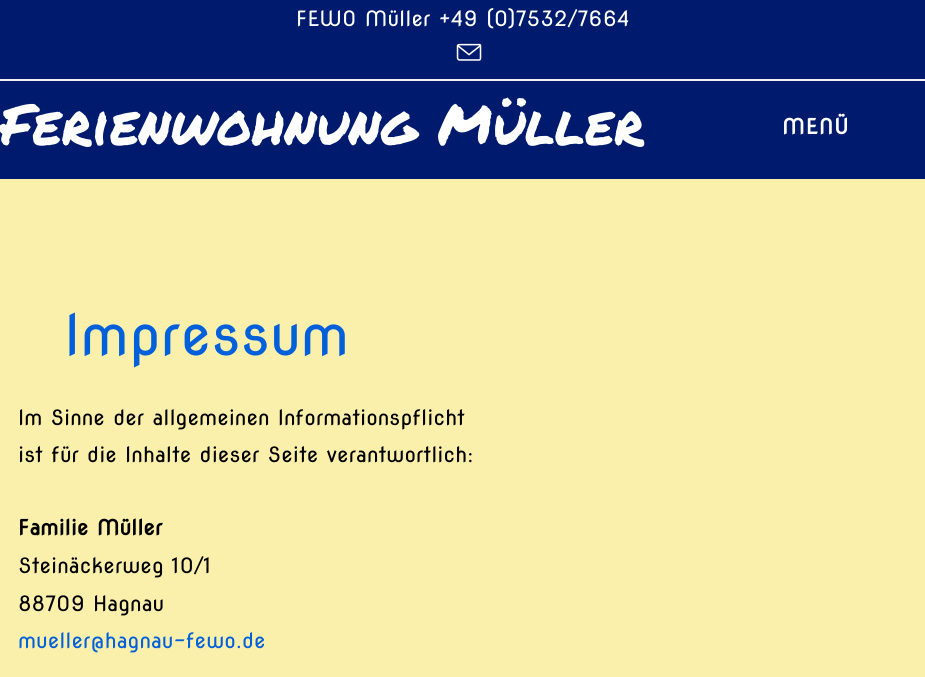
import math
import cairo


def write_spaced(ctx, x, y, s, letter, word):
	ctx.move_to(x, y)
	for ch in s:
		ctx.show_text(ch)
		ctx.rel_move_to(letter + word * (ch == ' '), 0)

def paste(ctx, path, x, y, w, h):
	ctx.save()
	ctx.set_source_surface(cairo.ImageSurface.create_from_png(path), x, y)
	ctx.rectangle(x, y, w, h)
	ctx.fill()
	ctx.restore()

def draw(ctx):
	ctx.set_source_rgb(0.98, 0.941, 0.671)
	ctx.paint()
	ctx.set_source_rgb(0, 0.106, 0.427)
	ctx.rectangle(0, 0, 925, 79)
	ctx.fill()
	ctx.set_source_rgb(0.945, 0.945, 0.945)
	ctx.rectangle(0, 79, 925, 2)
	ctx.fill()
	ctx.select_font_face('Nova Round')
	ctx.set_font_size(21)
	ctx.set_source_rgb(1, 1, 1)
	ctx.move_to(296, 26)
	ctx.show_text('FEWO Müller +49 (0)7532/7664')
	paste(ctx, 'media/1.png', 456, 43, 26, 18)
	ctx.set_source_rgb(0, 0.106, 0.427)
	ctx.rectangle(0, 81, 925, 98)
	ctx.fill()
	ctx.select_font_face('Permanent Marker')
	ctx.set_font_size(56)
	ctx.set_source_rgb(1, 1, 1)
	ctx.move_to(0, 145)
	ctx.show_text('Ferienwohnung Müller')
	ctx.select_font_face('Nova Round', cairo.FONT_SLANT_NORMAL, cairo.FONT_WEIGHT_BOLD)
	ctx.set_font_size(21)
	write_spaced(ctx, 782, 134, 'MENÜ', 1, 0)
	ctx.select_font_face('Nova Round')
	ctx.set_font_size(56)
	ctx.set_source_rgb(0, 0.373, 0.859)
	ctx.move_to(64, 355)
	ctx.show_text('Impressum')
	ctx.set_font_size(21)
	ctx.set_source_rgb(0, 0, 0)
	ctx.move_to(18, 425)
	ctx.show_text('Im Sinne der allgemeinen Informationspflicht')
	ctx.move_to(18, 462)
	ctx.show_text('ist für die Inhalte dieser Seite verantwortlich:')
	ctx.select_font_face('Nova Round', cairo.FONT_SLANT_NORMAL, cairo.FONT_WEIGHT_BOLD)
	ctx.move_to(18, 535)
	ctx.show_text('Familie Müller')
	ctx.select_font_face('Nova Round')
	ctx.move_to(18, 573)
	ctx.show_text('Steinäckerweg 10/1')
	ctx.move_to(18, 611)
	ctx.show_text('88709 Hagnau')
	ctx.set_source_rgb(0, 0.373, 0.859)
	ctx.move_to(18, 648)
	ctx.show_text('mueller@hagnau-fewo.de')


surface = cairo.ImageSurface(cairo.FORMAT_RGB24, 925, 677)
ctx = cairo.Context(surface)
options = cairo.FontOptions()
options.set_hint_metrics(cairo.HINT_METRICS_OFF)
options.set_hint_style(cairo.HINT_STYLE_NONE)
ctx.set_font_options(options)
ctx.set_miter_limit(4)
draw(ctx)
surface.write_to_png('image.png')
